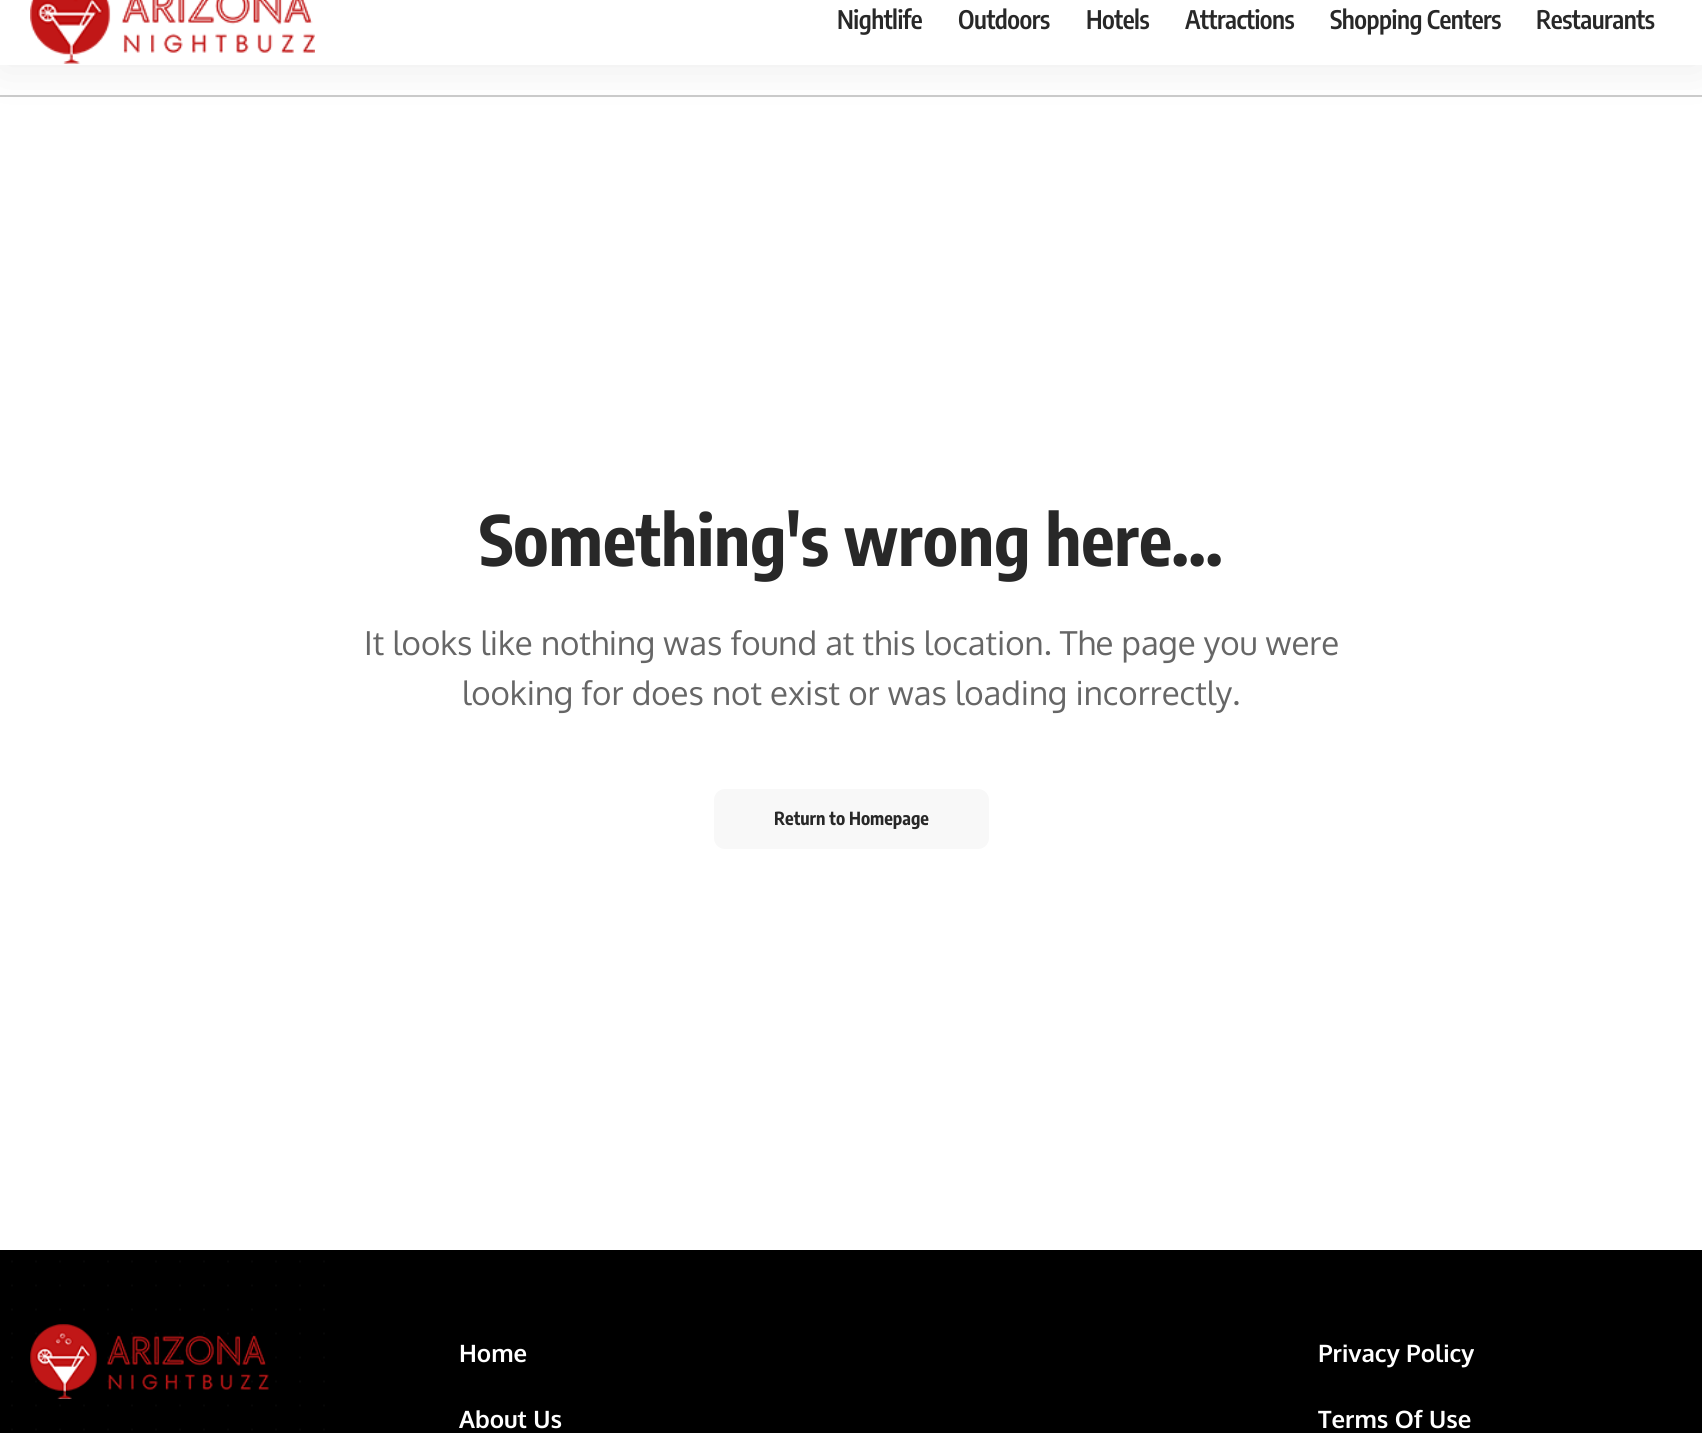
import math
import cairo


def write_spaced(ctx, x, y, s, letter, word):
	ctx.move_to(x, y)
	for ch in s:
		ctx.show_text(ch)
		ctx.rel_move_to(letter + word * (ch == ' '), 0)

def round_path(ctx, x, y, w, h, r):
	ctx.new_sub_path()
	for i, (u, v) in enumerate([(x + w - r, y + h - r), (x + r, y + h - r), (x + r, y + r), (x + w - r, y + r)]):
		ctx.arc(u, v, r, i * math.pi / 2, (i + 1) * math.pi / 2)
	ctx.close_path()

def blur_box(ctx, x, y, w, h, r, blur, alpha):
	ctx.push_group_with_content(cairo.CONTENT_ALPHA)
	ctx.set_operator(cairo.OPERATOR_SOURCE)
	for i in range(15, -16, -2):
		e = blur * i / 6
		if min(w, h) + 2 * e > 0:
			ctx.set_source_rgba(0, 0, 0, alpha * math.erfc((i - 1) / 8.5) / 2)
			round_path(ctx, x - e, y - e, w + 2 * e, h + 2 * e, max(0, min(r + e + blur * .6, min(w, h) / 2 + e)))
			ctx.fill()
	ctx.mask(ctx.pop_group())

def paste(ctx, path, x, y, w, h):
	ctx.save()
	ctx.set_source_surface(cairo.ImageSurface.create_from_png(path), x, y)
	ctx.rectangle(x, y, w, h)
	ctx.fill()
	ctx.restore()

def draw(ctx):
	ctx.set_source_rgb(1, 1, 1)
	ctx.paint()
	ctx.set_source_rgb(0.8, 0.8, 0.8)
	ctx.rectangle(0, 95, 1702, 2)
	ctx.fill()
	ctx.set_source_rgb(0, 0, 0)
	blur_box(ctx, 0, -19, 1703, 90, 0, 22.5, 0.07)
	ctx.set_source_rgb(1, 1, 1)
	ctx.rectangle(0, 0, 1702, 65)
	ctx.fill()
	paste(ctx, 'media/1.png', 30, 0, 285, 64)
	ctx.select_font_face('Encode Sans Condensed SemiBold')
	ctx.set_font_size(25.5)
	ctx.set_source_rgb(0.157, 0.157, 0.157)
	for x, y, s in [
		(837, 29, 'Nightlife'),
		(958, 29, 'Outdoors'),
		(1086, 29, 'Hotels'),
		(1185, 29, 'Attractions'),
		(1330, 29, 'Shopping Centers'),
		(1536, 29, 'Restaurants'),
	]:
		write_spaced(ctx, x, y, s, -0.5, 0)
	ctx.select_font_face('Encode Sans Condensed', cairo.FONT_SLANT_NORMAL, cairo.FONT_WEIGHT_BOLD)
	ctx.set_font_size(69)
	ctx.move_to(479, 566)
	ctx.show_text('Something\'s wrong here...')
	ctx.select_font_face('Oxygen')
	ctx.set_font_size(33)
	ctx.set_source_rgb(0.4, 0.4, 0.4)
	ctx.move_to(364, 655)
	ctx.show_text('It looks like nothing was found at this location. The page you were')
	ctx.move_to(462, 705)
	ctx.show_text('looking for does not exist or was loading incorrectly.')
	ctx.set_source_rgb(0.969, 0.969, 0.969)
	round_path(ctx, 714, 789, 275, 60, 11)
	ctx.fill()
	ctx.select_font_face('Encode Sans Condensed', cairo.FONT_SLANT_NORMAL, cairo.FONT_WEIGHT_BOLD)
	ctx.set_font_size(18)
	ctx.set_source_rgb(0.157, 0.157, 0.157)
	ctx.move_to(774, 825)
	ctx.show_text('Return to Homepage')
	ctx.set_source_rgb(0, 0, 0)
	ctx.rectangle(0, 1250, 1702, 183)
	ctx.fill()
	ctx.new_path()
	ctx.move_to(12, 1261.5)
	ctx.line_to(324.3, 1261.5)
	ctx.set_source_rgb(0.031, 0.031, 0.031)
	ctx.set_line_width(2.2)
	ctx.set_line_cap(cairo.LINE_CAP_ROUND)
	ctx.set_dash([0, 24])
	ctx.stroke()
	ctx.new_path()
	ctx.move_to(12, 1285.5)
	ctx.line_to(324.3, 1285.5)
	ctx.stroke()
	ctx.new_path()
	ctx.move_to(12, 1309.5)
	ctx.line_to(324.3, 1309.5)
	ctx.stroke()
	ctx.new_path()
	ctx.move_to(12, 1333.5)
	ctx.line_to(324.3, 1333.5)
	ctx.stroke()
	ctx.new_path()
	ctx.move_to(12, 1357.5)
	ctx.line_to(324.3, 1357.5)
	ctx.stroke()
	ctx.new_path()
	ctx.move_to(12, 1381.5)
	ctx.line_to(324.3, 1381.5)
	ctx.stroke()
	ctx.new_path()
	ctx.move_to(12, 1405.5)
	ctx.line_to(324.3, 1405.5)
	ctx.stroke()
	ctx.new_path()
	ctx.move_to(12, 1429.5)
	ctx.line_to(324.3, 1429.5)
	ctx.stroke()
	paste(ctx, 'media/2.png', 30, 1324, 239, 75)
	ctx.select_font_face('Oxygen', cairo.FONT_SLANT_NORMAL, cairo.FONT_WEIGHT_BOLD)
	ctx.set_font_size(24)
	ctx.set_source_rgb(1, 1, 1)
	for x, y, s in [
		(459, 1362, 'Home'),
		(459, 1428, 'About Us'),
		(1318, 1362, 'Privacy Policy'),
		(1318, 1428, 'Terms Of Use'),
	]:
		ctx.move_to(x, y)
		ctx.show_text(s)


surface = cairo.ImageSurface(cairo.FORMAT_RGB24, 1702, 1433)
ctx = cairo.Context(surface)
options = cairo.FontOptions()
options.set_hint_metrics(cairo.HINT_METRICS_OFF)
options.set_hint_style(cairo.HINT_STYLE_NONE)
ctx.set_font_options(options)
ctx.set_miter_limit(4)
draw(ctx)
surface.write_to_png('image.png')
